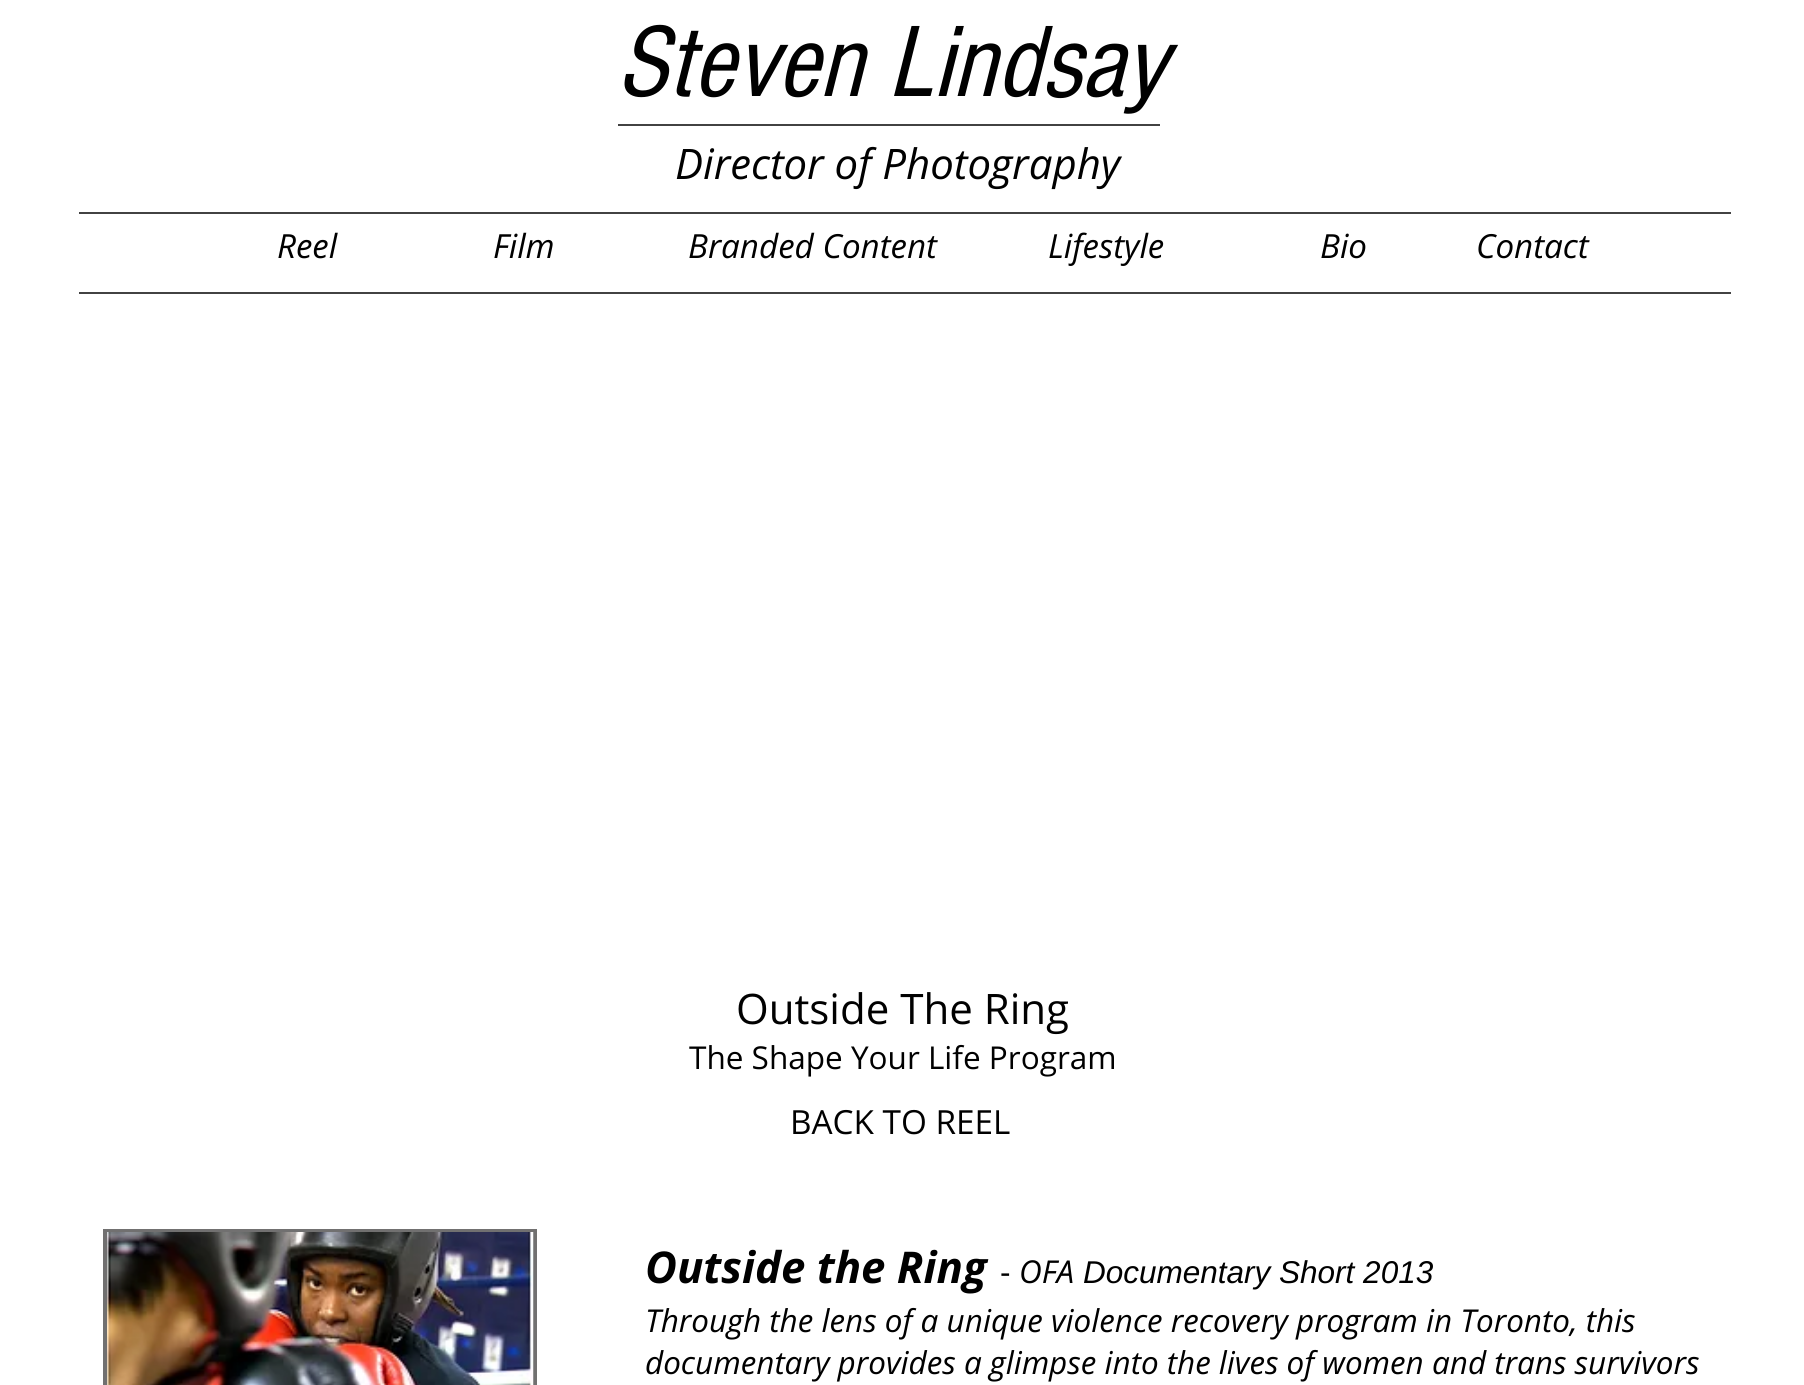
import math
import cairo


def paste(ctx, path, x, y, w, h):
	ctx.save()
	ctx.set_source_surface(cairo.ImageSurface.create_from_png(path), x, y)
	ctx.rectangle(x, y, w, h)
	ctx.fill()
	ctx.restore()

def draw(ctx):
	ctx.set_source_rgb(1, 1, 1)
	ctx.paint()
	ctx.select_font_face('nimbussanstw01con', cairo.FONT_SLANT_ITALIC)
	ctx.set_font_size(105)
	ctx.set_source_rgb(0, 0, 0)
	ctx.move_to(617, 96)
	ctx.show_text('Steven Lindsay')
	ctx.set_source_rgb(0.259, 0.259, 0.259)
	ctx.rectangle(618, 124, 542, 2)
	ctx.fill()
	ctx.select_font_face('Open Sans', cairo.FONT_SLANT_ITALIC)
	ctx.set_font_size(42)
	ctx.set_source_rgb(0, 0, 0)
	ctx.move_to(675, 179)
	ctx.show_text('Director of Photography')
	ctx.set_source_rgb(0.259, 0.259, 0.259)
	ctx.rectangle(79, 212, 1652, 2)
	ctx.fill()
	ctx.set_font_size(33.25)
	ctx.set_source_rgb(0, 0, 0)
	for x, y, s in [
		(277, 258, 'Reel'),
		(493, 258, 'Film'),
		(688, 258, 'Branded Content'),
		(1048, 258, 'Lifestyle'),
		(1320, 258, 'Bio'),
		(1476, 258, 'Contact'),
	]:
		ctx.move_to(x, y)
		ctx.show_text(s)
	ctx.set_source_rgb(0.259, 0.259, 0.259)
	ctx.rectangle(79, 292, 1652, 2)
	ctx.fill()
	ctx.select_font_face('Open Sans')
	ctx.set_font_size(42)
	ctx.set_source_rgb(0, 0, 0)
	ctx.move_to(736, 1024)
	ctx.show_text('Outside The Ring')
	ctx.set_font_size(31.5)
	ctx.move_to(689, 1069)
	ctx.show_text('The Shape Your Life Program')
	ctx.set_font_size(33.25)
	ctx.move_to(790, 1134)
	ctx.show_text('BACK TO REEL')
	ctx.set_source_rgb(0.443, 0.439, 0.439)
	ctx.rectangle(103, 1229, 434, 156)
	ctx.fill()
	paste(ctx, 'media/1.png', 107, 1232, 427, 153)
	ctx.select_font_face('Open Sans', cairo.FONT_SLANT_ITALIC, cairo.FONT_WEIGHT_BOLD)
	ctx.set_font_size(43.75)
	ctx.set_source_rgb(0, 0, 0)
	ctx.move_to(645, 1283)
	ctx.show_text('Outside the Ring')
	ctx.select_font_face('Liberation Sans')
	ctx.set_font_size(31.5)
	ctx.move_to(1000, 1283)
	ctx.show_text('-')
	ctx.select_font_face('Open Sans', cairo.FONT_SLANT_ITALIC)
	ctx.move_to(1019, 1283)
	ctx.show_text('OFA')
	ctx.select_font_face('Liberation Sans', cairo.FONT_SLANT_ITALIC)
	ctx.move_to(1083, 1283)
	ctx.show_text('Documentary Short 2013')
	ctx.select_font_face('Open Sans', cairo.FONT_SLANT_ITALIC)
	ctx.move_to(645, 1332)
	ctx.show_text('Through the lens of a unique violence recovery program in Toronto, this')
	ctx.move_to(645, 1374)
	ctx.show_text('documentary provides a glimpse into the lives of women and trans survivors')


surface = cairo.ImageSurface(cairo.FORMAT_RGB24, 1804, 1385)
ctx = cairo.Context(surface)
options = cairo.FontOptions()
options.set_hint_metrics(cairo.HINT_METRICS_OFF)
options.set_hint_style(cairo.HINT_STYLE_NONE)
ctx.set_font_options(options)
ctx.set_miter_limit(4)
draw(ctx)
surface.write_to_png('image.png')
